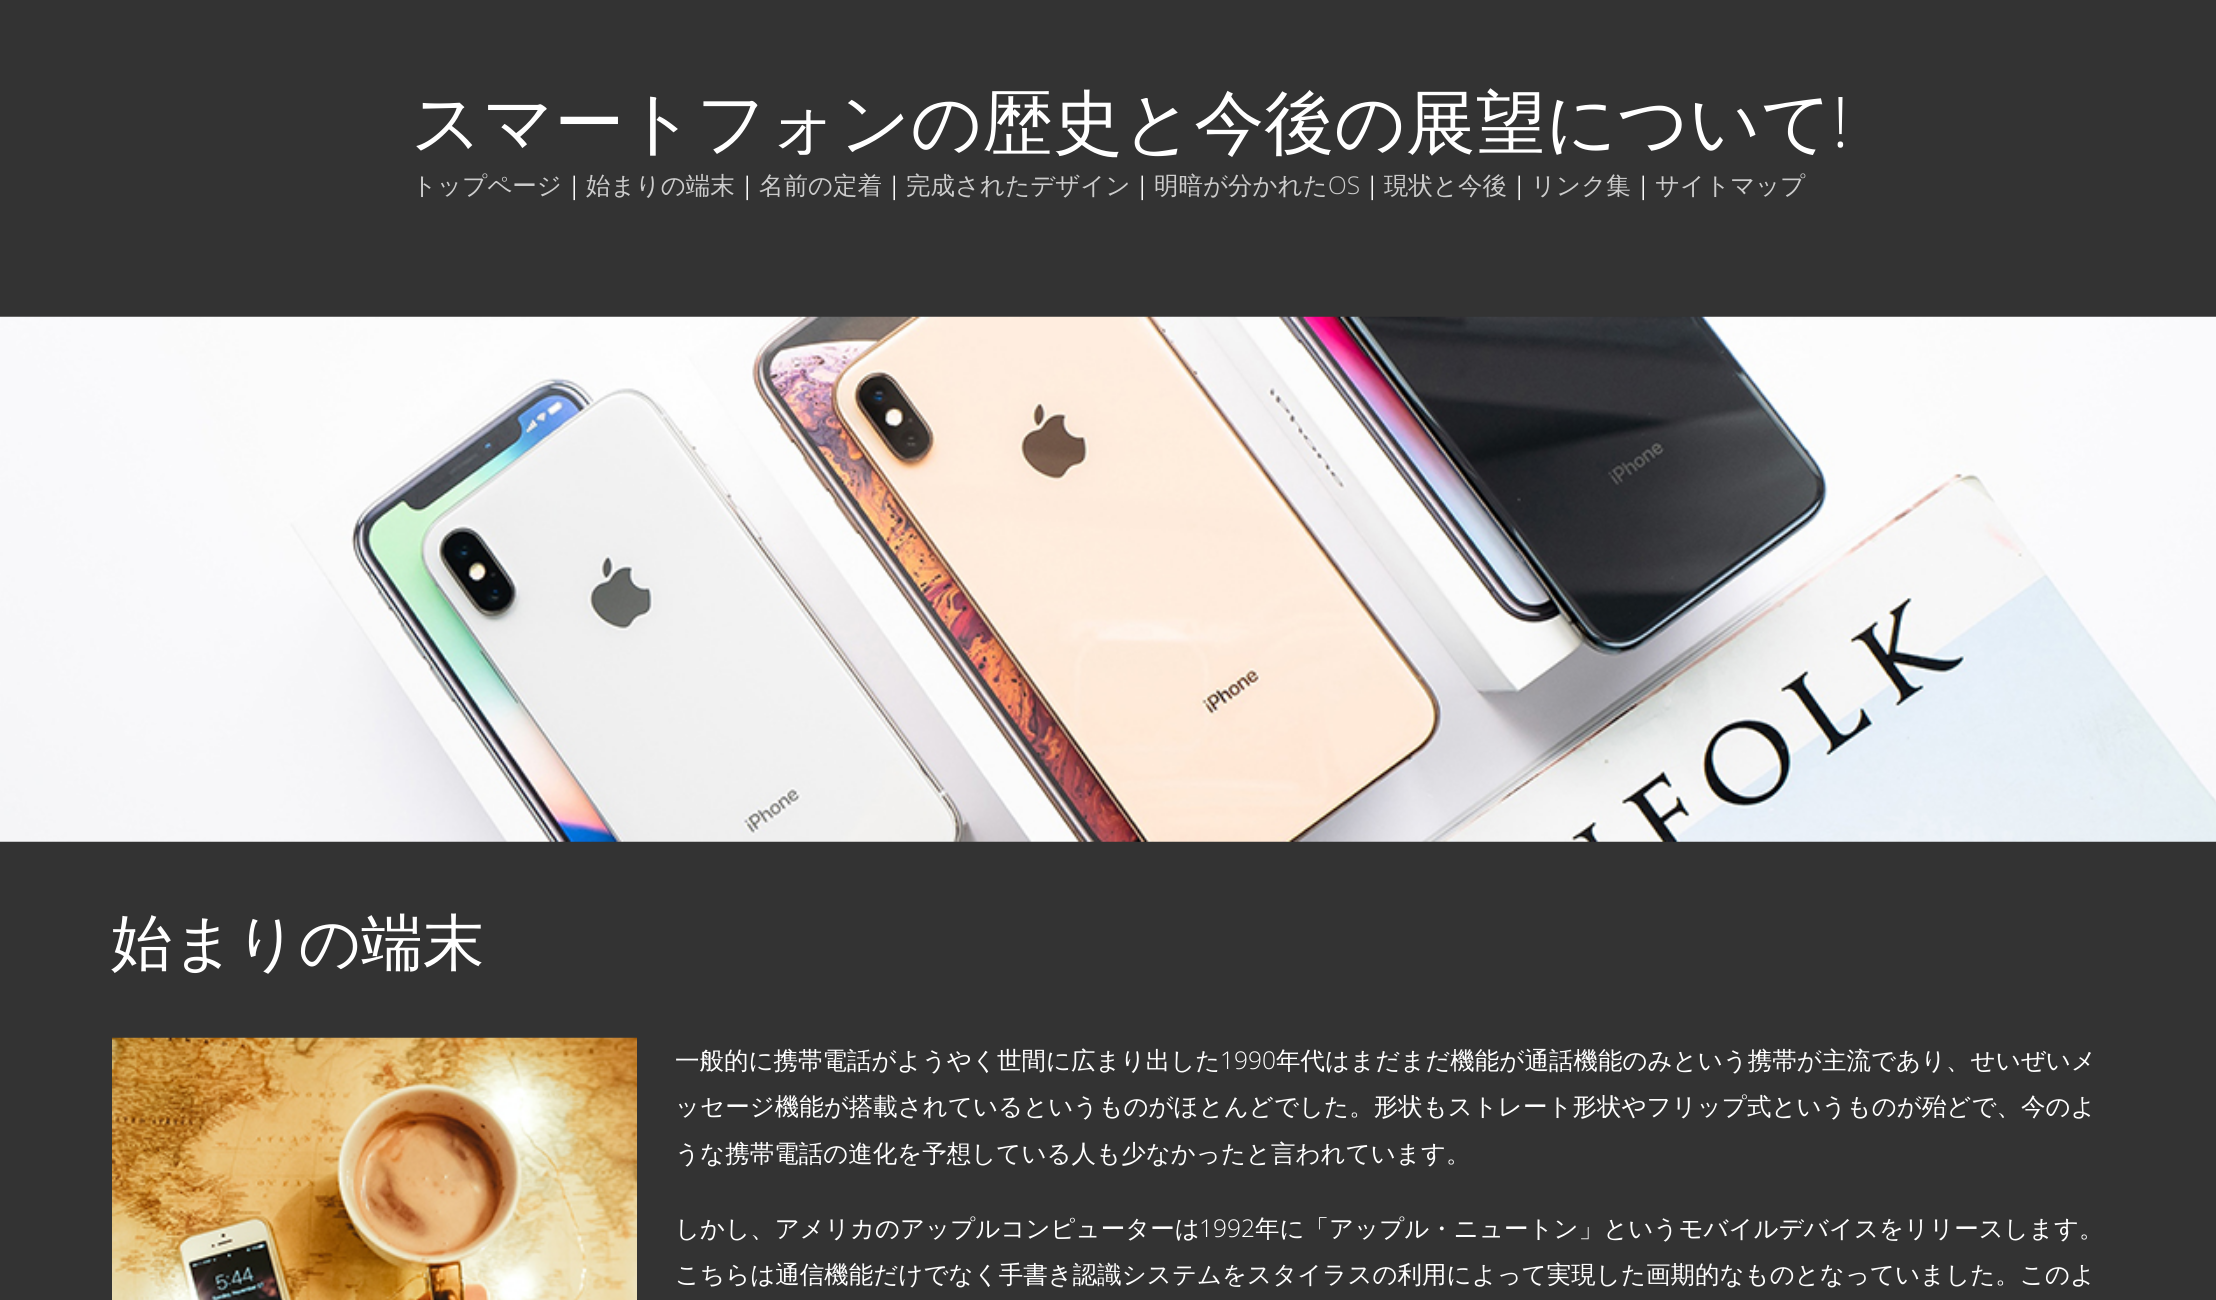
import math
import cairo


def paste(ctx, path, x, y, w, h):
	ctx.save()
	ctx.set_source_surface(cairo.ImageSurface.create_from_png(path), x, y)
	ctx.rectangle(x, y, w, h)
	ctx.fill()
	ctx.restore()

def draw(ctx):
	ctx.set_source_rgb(0.2, 0.2, 0.2)
	ctx.paint()
	ctx.select_font_face('WenQuanYi Zen Hei Medium')
	ctx.set_font_size(70)
	ctx.set_source_rgb(1, 1, 1)
	ctx.move_to(411, 147)
	ctx.show_text('スマートフォンの歴史と今後の展望について')
	ctx.select_font_face('Open Sans Light')
	ctx.move_to(1832, 147)
	ctx.show_text('!')
	ctx.select_font_face('WenQuanYi Zen Hei Medium')
	ctx.set_font_size(24.5)
	ctx.set_source_rgb(0.8, 0.8, 0.8)
	ctx.move_to(412, 194)
	ctx.show_text('トップページ')
	ctx.set_source_rgb(1, 1, 1)
	ctx.move_to(562, 194)
	ctx.show_text('｜')
	ctx.set_source_rgb(0.8, 0.8, 0.8)
	ctx.move_to(586, 194)
	ctx.show_text('始まりの端末')
	ctx.set_source_rgb(1, 1, 1)
	ctx.move_to(735, 194)
	ctx.show_text('｜')
	ctx.set_source_rgb(0.8, 0.8, 0.8)
	ctx.move_to(759, 194)
	ctx.show_text('名前の定着')
	ctx.set_source_rgb(1, 1, 1)
	ctx.move_to(882, 194)
	ctx.show_text('｜')
	ctx.set_source_rgb(0.8, 0.8, 0.8)
	ctx.move_to(906, 194)
	ctx.show_text('完成されたデザイン')
	ctx.set_source_rgb(1, 1, 1)
	ctx.move_to(1130, 194)
	ctx.show_text('｜')
	ctx.set_source_rgb(0.8, 0.8, 0.8)
	ctx.move_to(1154, 194)
	ctx.show_text('明暗が分かれた')
	ctx.select_font_face('Open Sans Light')
	ctx.move_to(1328, 194)
	ctx.show_text('OS')
	ctx.select_font_face('WenQuanYi Zen Hei Medium')
	ctx.set_source_rgb(1, 1, 1)
	ctx.move_to(1360, 194)
	ctx.show_text('｜')
	ctx.set_source_rgb(0.8, 0.8, 0.8)
	ctx.move_to(1384, 194)
	ctx.show_text('現状と今後')
	ctx.set_source_rgb(1, 1, 1)
	ctx.move_to(1507, 194)
	ctx.show_text('｜')
	ctx.set_source_rgb(0.8, 0.8, 0.8)
	ctx.move_to(1531, 194)
	ctx.show_text('リンク集')
	ctx.set_source_rgb(1, 1, 1)
	ctx.move_to(1631, 194)
	ctx.show_text('｜')
	ctx.set_source_rgb(0.8, 0.8, 0.8)
	ctx.move_to(1655, 194)
	ctx.show_text('サイトマップ')
	paste(ctx, 'media/1.png', 0, 316, 2216, 526)
	ctx.set_font_size(61.5)
	ctx.set_source_rgb(1, 1, 1)
	ctx.move_to(111, 964)
	ctx.show_text('始まりの端末')
	paste(ctx, 'media/2.png', 112, 1037, 525, 263)
	ctx.set_font_size(24.5)
	ctx.move_to(675, 1069)
	ctx.show_text('一般的に携帯電話がようやく世間に広まり出した')
	ctx.select_font_face('Open Sans Light')
	ctx.move_to(1220, 1069)
	ctx.show_text('1990')
	ctx.select_font_face('WenQuanYi Zen Hei Medium')
	for x, y, s in [
		(1276, 1069, '年代はまだまだ機能が通話機能のみという携帯が主流であり、せいぜいメ'),
		(675, 1115, 'ッセージ機能が搭載されているというものがほとんどでした。形状もストレート形状やフリップ式というものが殆どで、今のよ'),
		(675, 1162, 'うな携帯電話の進化を予想している人も少なかったと言われています。'),
		(675, 1237, 'しかし、アメリカのアップルコンピューターは'),
	]:
		ctx.move_to(x, y)
		ctx.show_text(s)
	ctx.select_font_face('Open Sans Light')
	ctx.move_to(1199, 1237)
	ctx.show_text('1992')
	ctx.select_font_face('WenQuanYi Zen Hei Medium')
	ctx.move_to(1255, 1237)
	ctx.show_text('年に「アップル・ニュートン」というモバイルデバイスをリリースします。')
	ctx.move_to(675, 1283)
	ctx.show_text('こちらは通信機能だけでなく手書き認識システムをスタイラスの利用によって実現した画期的なものとなっていました。このよ')


surface = cairo.ImageSurface(cairo.FORMAT_RGB24, 2216, 1300)
ctx = cairo.Context(surface)
options = cairo.FontOptions()
options.set_hint_metrics(cairo.HINT_METRICS_OFF)
options.set_hint_style(cairo.HINT_STYLE_NONE)
ctx.set_font_options(options)
ctx.set_miter_limit(4)
draw(ctx)
surface.write_to_png('image.png')
